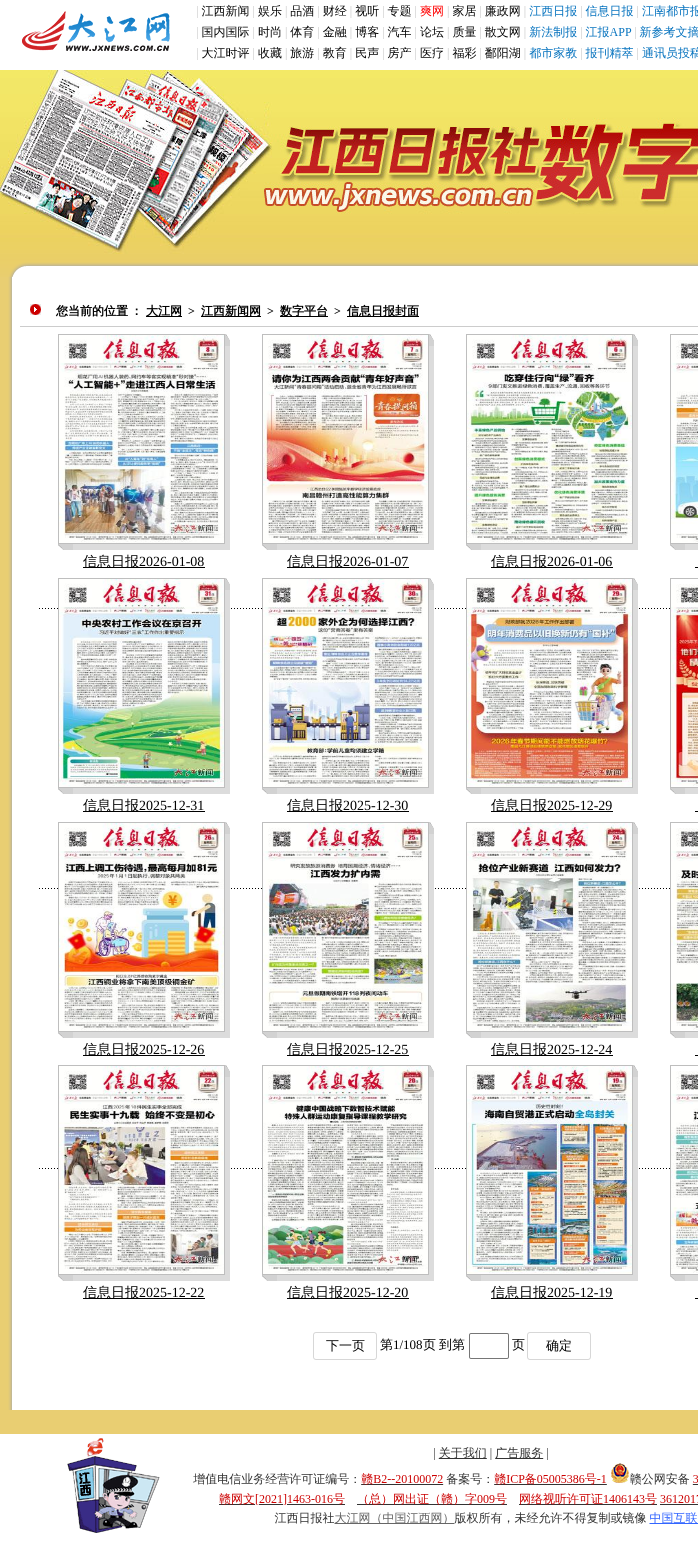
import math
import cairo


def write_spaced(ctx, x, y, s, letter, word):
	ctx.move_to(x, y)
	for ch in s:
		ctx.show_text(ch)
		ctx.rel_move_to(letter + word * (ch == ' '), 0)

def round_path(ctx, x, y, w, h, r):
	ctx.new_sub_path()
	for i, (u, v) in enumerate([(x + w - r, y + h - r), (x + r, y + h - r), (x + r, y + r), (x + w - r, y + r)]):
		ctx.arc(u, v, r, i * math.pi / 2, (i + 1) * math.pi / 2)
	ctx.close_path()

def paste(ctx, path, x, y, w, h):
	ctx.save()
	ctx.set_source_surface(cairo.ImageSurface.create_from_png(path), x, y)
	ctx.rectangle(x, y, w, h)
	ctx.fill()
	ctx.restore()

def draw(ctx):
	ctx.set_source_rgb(1, 1, 1)
	ctx.paint()
	paste(ctx, 'media/1.png', 22, 4, 676, 56)
	paste(ctx, 'media/2.png', 0, 70, 698, 187)
	paste(ctx, 'media/3.png', 0, 257, 698, 20)
	paste(ctx, 'media/4.png', 0, 277, 12, 1133)
	ctx.set_source_rgb(0.8, 0.8, 0.8)
	ctx.rectangle(20, 326, 678, 1)
	ctx.fill()
	paste(ctx, 'media/5.png', 30, 304, 11, 11)
	ctx.select_font_face('WenQuanYi Zen Hei', cairo.FONT_SLANT_NORMAL, cairo.FONT_WEIGHT_BOLD)
	ctx.set_font_size(12)
	ctx.set_source_rgb(0, 0, 0)
	write_spaced(ctx, 56, 315, '您当前的位置 ：', 0, -1)
	ctx.rectangle(146, 316, 36, 1)
	ctx.fill()
	ctx.move_to(146, 315)
	ctx.show_text('大江网')
	ctx.select_font_face('Liberation Serif', cairo.FONT_SLANT_NORMAL, cairo.FONT_WEIGHT_BOLD)
	ctx.move_to(188, 315)
	ctx.show_text('>')
	ctx.rectangle(201, 316, 60, 1)
	ctx.fill()
	ctx.select_font_face('WenQuanYi Zen Hei', cairo.FONT_SLANT_NORMAL, cairo.FONT_WEIGHT_BOLD)
	ctx.move_to(201, 315)
	ctx.show_text('江西新闻网')
	ctx.select_font_face('Liberation Serif', cairo.FONT_SLANT_NORMAL, cairo.FONT_WEIGHT_BOLD)
	ctx.move_to(267, 315)
	ctx.show_text('>')
	ctx.rectangle(280, 316, 48, 1)
	ctx.fill()
	ctx.select_font_face('WenQuanYi Zen Hei', cairo.FONT_SLANT_NORMAL, cairo.FONT_WEIGHT_BOLD)
	ctx.move_to(280, 315)
	ctx.show_text('数字平台')
	ctx.select_font_face('Liberation Serif', cairo.FONT_SLANT_NORMAL, cairo.FONT_WEIGHT_BOLD)
	ctx.move_to(334, 315)
	ctx.show_text('>')
	ctx.rectangle(347, 316, 72, 1)
	ctx.fill()
	ctx.select_font_face('WenQuanYi Zen Hei', cairo.FONT_SLANT_NORMAL, cairo.FONT_WEIGHT_BOLD)
	ctx.move_to(347, 315)
	ctx.show_text('信息日报封面')
	paste(ctx, 'media/6.png', 39, 608, 658, 561)
	ctx.rectangle(58.5, 334.5, 166, 209)
	ctx.set_source_rgb(0.745, 0.745, 0.745)
	ctx.set_line_width(1)
	ctx.stroke()
	paste(ctx, 'media/7.png', 59, 335, 165, 208)
	ctx.set_source_rgb(0.863, 0.863, 0.863)
	ctx.rectangle(225, 346, 5, 204)
	ctx.fill()
	paste(ctx, 'media/8.png', 225, 334, 5, 12)
	ctx.rectangle(73, 544, 152, 6)
	ctx.fill()
	paste(ctx, 'media/9.png', 58, 544, 15, 6)
	ctx.set_source_rgb(0, 0, 0)
	ctx.rectangle(83, 567, 122, 1)
	ctx.fill()
	ctx.select_font_face('WenQuanYi Zen Hei Medium')
	ctx.set_font_size(14)
	ctx.move_to(83, 566)
	ctx.show_text('信息日报')
	ctx.select_font_face('Liberation Serif')
	ctx.move_to(139, 566)
	ctx.show_text('2026-01-08')
	ctx.rectangle(262.5, 334.5, 166, 209)
	ctx.set_source_rgb(0.745, 0.745, 0.745)
	ctx.stroke()
	paste(ctx, 'media/10.png', 263, 335, 165, 208)
	ctx.set_source_rgb(0.863, 0.863, 0.863)
	ctx.rectangle(429, 346, 5, 204)
	ctx.fill()
	paste(ctx, 'media/8.png', 429, 334, 5, 12)
	ctx.rectangle(277, 544, 152, 6)
	ctx.fill()
	paste(ctx, 'media/9.png', 262, 544, 15, 6)
	ctx.set_source_rgb(0, 0, 0)
	ctx.rectangle(287, 567, 122, 1)
	ctx.fill()
	ctx.select_font_face('WenQuanYi Zen Hei Medium')
	ctx.move_to(287, 566)
	ctx.show_text('信息日报')
	ctx.select_font_face('Liberation Serif')
	ctx.move_to(343, 566)
	ctx.show_text('2026-01-07')
	ctx.rectangle(466.5, 334.5, 166, 209)
	ctx.set_source_rgb(0.745, 0.745, 0.745)
	ctx.stroke()
	paste(ctx, 'media/11.png', 467, 335, 165, 208)
	ctx.set_source_rgb(0.863, 0.863, 0.863)
	ctx.rectangle(633, 346, 5, 204)
	ctx.fill()
	paste(ctx, 'media/8.png', 633, 334, 5, 12)
	ctx.rectangle(481, 544, 152, 6)
	ctx.fill()
	paste(ctx, 'media/9.png', 466, 544, 15, 6)
	ctx.set_source_rgb(0, 0, 0)
	ctx.rectangle(491, 567, 122, 1)
	ctx.fill()
	ctx.select_font_face('WenQuanYi Zen Hei Medium')
	ctx.move_to(491, 566)
	ctx.show_text('信息日报')
	ctx.select_font_face('Liberation Serif')
	ctx.move_to(547, 566)
	ctx.show_text('2026-01-06')
	ctx.rectangle(670.5, 334.5, 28, 209)
	ctx.set_source_rgb(0.745, 0.745, 0.745)
	ctx.stroke()
	paste(ctx, 'media/12.png', 671, 340, 27, 203)
	ctx.set_source_rgb(0.863, 0.863, 0.863)
	ctx.rectangle(685, 544, 13, 6)
	ctx.fill()
	paste(ctx, 'media/9.png', 670, 544, 15, 6)
	ctx.set_source_rgb(0, 0, 0)
	ctx.rectangle(695, 567, 3, 1)
	ctx.fill()
	ctx.rectangle(58.5, 578.5, 166, 209)
	ctx.set_source_rgb(0.745, 0.745, 0.745)
	ctx.stroke()
	paste(ctx, 'media/13.png', 59, 579, 165, 208)
	ctx.set_source_rgb(0.863, 0.863, 0.863)
	ctx.rectangle(225, 590, 5, 204)
	ctx.fill()
	paste(ctx, 'media/8.png', 225, 578, 5, 12)
	ctx.rectangle(73, 788, 152, 6)
	ctx.fill()
	paste(ctx, 'media/9.png', 58, 788, 15, 6)
	ctx.set_source_rgb(0, 0, 0)
	ctx.rectangle(83, 811, 122, 1)
	ctx.fill()
	ctx.select_font_face('WenQuanYi Zen Hei Medium')
	ctx.move_to(83, 810)
	ctx.show_text('信息日报')
	ctx.select_font_face('Liberation Serif')
	ctx.move_to(139, 810)
	ctx.show_text('2025-12-31')
	ctx.rectangle(262.5, 578.5, 166, 209)
	ctx.set_source_rgb(0.745, 0.745, 0.745)
	ctx.stroke()
	paste(ctx, 'media/14.png', 263, 579, 165, 208)
	ctx.set_source_rgb(0.863, 0.863, 0.863)
	ctx.rectangle(429, 590, 5, 204)
	ctx.fill()
	paste(ctx, 'media/8.png', 429, 578, 5, 12)
	ctx.rectangle(277, 788, 152, 6)
	ctx.fill()
	paste(ctx, 'media/9.png', 262, 788, 15, 6)
	ctx.set_source_rgb(0, 0, 0)
	ctx.rectangle(287, 811, 122, 1)
	ctx.fill()
	ctx.select_font_face('WenQuanYi Zen Hei Medium')
	ctx.move_to(287, 810)
	ctx.show_text('信息日报')
	ctx.select_font_face('Liberation Serif')
	ctx.move_to(343, 810)
	ctx.show_text('2025-12-30')
	ctx.rectangle(466.5, 578.5, 166, 209)
	ctx.set_source_rgb(0.745, 0.745, 0.745)
	ctx.stroke()
	paste(ctx, 'media/15.png', 467, 579, 165, 208)
	ctx.set_source_rgb(0.863, 0.863, 0.863)
	ctx.rectangle(633, 590, 5, 204)
	ctx.fill()
	paste(ctx, 'media/8.png', 633, 578, 5, 12)
	ctx.rectangle(481, 788, 152, 6)
	ctx.fill()
	paste(ctx, 'media/9.png', 466, 788, 15, 6)
	ctx.set_source_rgb(0, 0, 0)
	ctx.rectangle(491, 811, 122, 1)
	ctx.fill()
	ctx.select_font_face('WenQuanYi Zen Hei Medium')
	ctx.move_to(491, 810)
	ctx.show_text('信息日报')
	ctx.select_font_face('Liberation Serif')
	ctx.move_to(547, 810)
	ctx.show_text('2025-12-29')
	ctx.rectangle(670.5, 578.5, 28, 209)
	ctx.set_source_rgb(0.745, 0.745, 0.745)
	ctx.stroke()
	paste(ctx, 'media/16.png', 671, 584, 27, 202)
	ctx.set_source_rgb(0.863, 0.863, 0.863)
	ctx.rectangle(685, 788, 13, 6)
	ctx.fill()
	paste(ctx, 'media/9.png', 670, 788, 15, 6)
	ctx.set_source_rgb(0, 0, 0)
	ctx.rectangle(695, 811, 3, 1)
	ctx.fill()
	ctx.rectangle(58.5, 822.5, 166, 209)
	ctx.set_source_rgb(0.745, 0.745, 0.745)
	ctx.stroke()
	paste(ctx, 'media/17.png', 59, 823, 165, 208)
	ctx.set_source_rgb(0.863, 0.863, 0.863)
	ctx.rectangle(225, 834, 5, 204)
	ctx.fill()
	paste(ctx, 'media/8.png', 225, 822, 5, 12)
	ctx.rectangle(73, 1032, 152, 6)
	ctx.fill()
	paste(ctx, 'media/9.png', 58, 1032, 15, 6)
	ctx.set_source_rgb(0, 0, 0)
	ctx.rectangle(83, 1055, 122, 1)
	ctx.fill()
	ctx.select_font_face('WenQuanYi Zen Hei Medium')
	ctx.move_to(83, 1054)
	ctx.show_text('信息日报')
	ctx.select_font_face('Liberation Serif')
	ctx.move_to(139, 1054)
	ctx.show_text('2025-12-26')
	ctx.rectangle(262.5, 822.5, 166, 209)
	ctx.set_source_rgb(0.745, 0.745, 0.745)
	ctx.stroke()
	paste(ctx, 'media/18.png', 263, 823, 165, 208)
	ctx.set_source_rgb(0.863, 0.863, 0.863)
	ctx.rectangle(429, 834, 5, 204)
	ctx.fill()
	paste(ctx, 'media/8.png', 429, 822, 5, 12)
	ctx.rectangle(277, 1032, 152, 6)
	ctx.fill()
	paste(ctx, 'media/9.png', 262, 1032, 15, 6)
	ctx.set_source_rgb(0, 0, 0)
	ctx.rectangle(287, 1055, 122, 1)
	ctx.fill()
	ctx.select_font_face('WenQuanYi Zen Hei Medium')
	ctx.move_to(287, 1054)
	ctx.show_text('信息日报')
	ctx.select_font_face('Liberation Serif')
	ctx.move_to(343, 1054)
	ctx.show_text('2025-12-25')
	ctx.rectangle(466.5, 822.5, 166, 209)
	ctx.set_source_rgb(0.745, 0.745, 0.745)
	ctx.stroke()
	paste(ctx, 'media/19.png', 467, 823, 165, 208)
	ctx.set_source_rgb(0.863, 0.863, 0.863)
	ctx.rectangle(633, 834, 5, 204)
	ctx.fill()
	paste(ctx, 'media/8.png', 633, 822, 5, 12)
	ctx.rectangle(481, 1032, 152, 6)
	ctx.fill()
	paste(ctx, 'media/9.png', 466, 1032, 15, 6)
	ctx.set_source_rgb(0, 0, 0)
	ctx.rectangle(491, 1055, 122, 1)
	ctx.fill()
	ctx.select_font_face('WenQuanYi Zen Hei Medium')
	ctx.move_to(491, 1054)
	ctx.show_text('信息日报')
	ctx.select_font_face('Liberation Serif')
	ctx.move_to(547, 1054)
	ctx.show_text('2025-12-24')
	ctx.rectangle(670.5, 822.5, 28, 209)
	ctx.set_source_rgb(0.745, 0.745, 0.745)
	ctx.stroke()
	paste(ctx, 'media/20.png', 671, 828, 27, 202)
	ctx.set_source_rgb(0.863, 0.863, 0.863)
	ctx.rectangle(685, 1032, 13, 6)
	ctx.fill()
	paste(ctx, 'media/9.png', 670, 1032, 15, 6)
	ctx.set_source_rgb(0, 0, 0)
	ctx.rectangle(695, 1055, 3, 1)
	ctx.fill()
	ctx.rectangle(58.5, 1065.5, 166, 209)
	ctx.set_source_rgb(0.745, 0.745, 0.745)
	ctx.stroke()
	paste(ctx, 'media/21.png', 59, 1066, 165, 208)
	ctx.set_source_rgb(0.863, 0.863, 0.863)
	ctx.rectangle(225, 1077, 5, 204)
	ctx.fill()
	paste(ctx, 'media/8.png', 225, 1065, 5, 12)
	ctx.rectangle(73, 1275, 152, 6)
	ctx.fill()
	paste(ctx, 'media/9.png', 58, 1275, 15, 6)
	ctx.set_source_rgb(0, 0, 0)
	ctx.rectangle(83, 1298, 122, 1)
	ctx.fill()
	ctx.select_font_face('WenQuanYi Zen Hei Medium')
	ctx.move_to(83, 1297)
	ctx.show_text('信息日报')
	ctx.select_font_face('Liberation Serif')
	ctx.move_to(139, 1297)
	ctx.show_text('2025-12-22')
	ctx.rectangle(262.5, 1065.5, 166, 209)
	ctx.set_source_rgb(0.745, 0.745, 0.745)
	ctx.stroke()
	paste(ctx, 'media/22.png', 263, 1066, 165, 208)
	ctx.set_source_rgb(0.863, 0.863, 0.863)
	ctx.rectangle(429, 1077, 5, 204)
	ctx.fill()
	paste(ctx, 'media/8.png', 429, 1065, 5, 12)
	ctx.rectangle(277, 1275, 152, 6)
	ctx.fill()
	paste(ctx, 'media/9.png', 262, 1275, 15, 6)
	ctx.set_source_rgb(0, 0, 0)
	ctx.rectangle(287, 1298, 122, 1)
	ctx.fill()
	ctx.select_font_face('WenQuanYi Zen Hei Medium')
	ctx.move_to(287, 1297)
	ctx.show_text('信息日报')
	ctx.select_font_face('Liberation Serif')
	ctx.move_to(343, 1297)
	ctx.show_text('2025-12-20')
	ctx.rectangle(466.5, 1065.5, 166, 209)
	ctx.set_source_rgb(0.745, 0.745, 0.745)
	ctx.stroke()
	paste(ctx, 'media/23.png', 467, 1066, 165, 208)
	ctx.set_source_rgb(0.863, 0.863, 0.863)
	ctx.rectangle(633, 1077, 5, 204)
	ctx.fill()
	paste(ctx, 'media/8.png', 633, 1065, 5, 12)
	ctx.rectangle(481, 1275, 152, 6)
	ctx.fill()
	paste(ctx, 'media/9.png', 466, 1275, 15, 6)
	ctx.set_source_rgb(0, 0, 0)
	ctx.rectangle(491, 1298, 122, 1)
	ctx.fill()
	ctx.select_font_face('WenQuanYi Zen Hei Medium')
	ctx.move_to(491, 1297)
	ctx.show_text('信息日报')
	ctx.select_font_face('Liberation Serif')
	ctx.move_to(547, 1297)
	ctx.show_text('2025-12-19')
	ctx.rectangle(670.5, 1065.5, 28, 209)
	ctx.set_source_rgb(0.745, 0.745, 0.745)
	ctx.stroke()
	paste(ctx, 'media/24.png', 671, 1071, 27, 202)
	ctx.set_source_rgb(0.863, 0.863, 0.863)
	ctx.rectangle(685, 1275, 13, 6)
	ctx.fill()
	paste(ctx, 'media/9.png', 670, 1275, 15, 6)
	ctx.set_source_rgb(0, 0, 0)
	ctx.rectangle(695, 1298, 3, 1)
	ctx.fill()
	round_path(ctx, 313.5, 1332.5, 63, 27, 2.5)
	ctx.set_source_rgb(0.843, 0.843, 0.843)
	ctx.stroke()
	ctx.select_font_face('WenQuanYi Zen Hei Medium')
	ctx.set_font_size(13)
	ctx.set_source_rgb(0, 0, 0)
	ctx.move_to(326, 1350)
	ctx.show_text('下一页')
	ctx.move_to(380, 1349)
	ctx.show_text('第')
	ctx.select_font_face('Liberation Serif')
	ctx.move_to(393, 1349)
	ctx.show_text('1/108')
	ctx.select_font_face('WenQuanYi Zen Hei Medium')
	ctx.move_to(423, 1349)
	ctx.show_text('页')
	ctx.move_to(439, 1349)
	ctx.show_text('到第')
	round_path(ctx, 469.5, 1333.5, 39, 25, 1.5)
	ctx.set_source_rgb(0.463, 0.463, 0.463)
	ctx.stroke()
	ctx.set_source_rgb(0, 0, 0)
	ctx.move_to(512, 1349)
	ctx.show_text('页')
	round_path(ctx, 527.5, 1332.5, 63, 27, 2.5)
	ctx.set_source_rgb(0.843, 0.843, 0.843)
	ctx.stroke()
	ctx.set_source_rgb(0, 0, 0)
	ctx.move_to(546, 1350)
	ctx.show_text('确定')
	ctx.set_source_rgb(0.914, 0.808, 0.447)
	ctx.rectangle(0, 1410, 698, 24)
	ctx.fill()
	paste(ctx, 'media/25.png', 67, 1438, 631, 95)


surface = cairo.ImageSurface(cairo.FORMAT_RGB24, 698, 1559)
ctx = cairo.Context(surface)
options = cairo.FontOptions()
options.set_hint_metrics(cairo.HINT_METRICS_OFF)
options.set_hint_style(cairo.HINT_STYLE_NONE)
ctx.set_font_options(options)
ctx.set_miter_limit(4)
draw(ctx)
surface.write_to_png('image.png')
